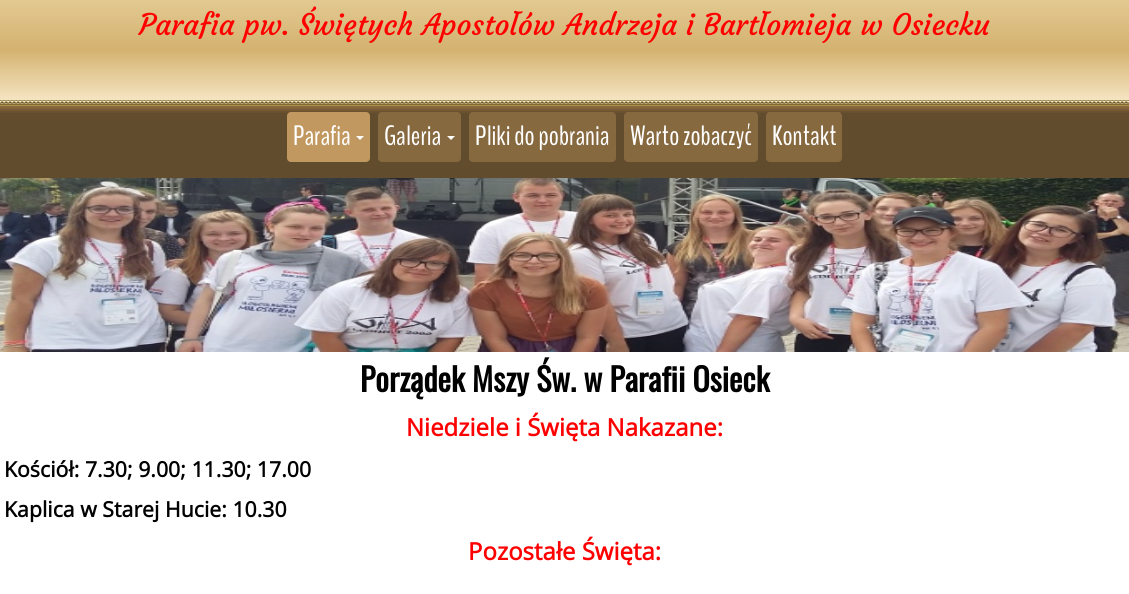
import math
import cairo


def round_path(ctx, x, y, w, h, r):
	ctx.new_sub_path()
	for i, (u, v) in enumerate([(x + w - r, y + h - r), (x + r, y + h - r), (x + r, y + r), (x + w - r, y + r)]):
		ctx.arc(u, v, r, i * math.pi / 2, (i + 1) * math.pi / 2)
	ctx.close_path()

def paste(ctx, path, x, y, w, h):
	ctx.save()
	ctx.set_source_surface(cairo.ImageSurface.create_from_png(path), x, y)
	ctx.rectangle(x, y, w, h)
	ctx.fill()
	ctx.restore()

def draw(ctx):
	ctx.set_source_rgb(1, 1, 1)
	ctx.paint()
	gradient = cairo.LinearGradient(565, 0, 565, 100)
	gradient.add_color_stop_rgba(0, 0.89, 0.788, 0.569, 1)
	gradient.add_color_stop_rgba(0.5, 0.831, 0.698, 0.439, 1)
	gradient.add_color_stop_rgba(1, 0.961, 0.898, 0.757, 1)
	ctx.set_source(gradient)
	ctx.rectangle(0, 0, 1129, 100)
	ctx.fill()
	ctx.select_font_face('Courgette')
	ctx.set_font_size(29.3)
	ctx.set_source_rgb(1, 0, 0)
	ctx.move_to(139, 35)
	ctx.show_text('Parafia pw. Świętych Apostołów Andrzeja i Bartłomieja w Osiecku')
	ctx.set_source_rgb(0.38, 0.298, 0.18)
	ctx.rectangle(0, 113, 1129, 65)
	ctx.fill()
	paste(ctx, 'media/1.png', 0, 100, 1129, 13)
	ctx.set_source_rgb(0.757, 0.596, 0.373)
	round_path(ctx, 287, 112, 83, 50, 4)
	ctx.fill()
	ctx.select_font_face('BenchNine')
	ctx.set_font_size(28)
	ctx.set_source_rgb(1, 1, 1)
	ctx.move_to(293, 145)
	ctx.show_text('Parafia')
	ctx.new_path()
	ctx.move_to(356, 136)
	ctx.line_to(364, 136)
	ctx.line_to(360, 140)
	ctx.close_path()
	ctx.fill()
	ctx.set_source_rgb(0.529, 0.412, 0.251)
	round_path(ctx, 378, 112, 83, 50, 4)
	ctx.fill()
	ctx.set_source_rgb(1, 1, 1)
	ctx.move_to(384, 145)
	ctx.show_text('Galeria')
	ctx.new_path()
	ctx.move_to(447, 136)
	ctx.line_to(455, 136)
	ctx.line_to(451, 140)
	ctx.close_path()
	ctx.fill()
	ctx.set_source_rgb(0.529, 0.412, 0.251)
	round_path(ctx, 469, 112, 147, 50, 4)
	ctx.fill()
	ctx.set_source_rgb(1, 1, 1)
	ctx.move_to(475, 145)
	ctx.show_text('Pliki do pobrania')
	ctx.set_source_rgb(0.529, 0.412, 0.251)
	round_path(ctx, 624, 112, 134, 50, 4)
	ctx.fill()
	ctx.set_source_rgb(1, 1, 1)
	ctx.move_to(630, 145)
	ctx.show_text('Warto zobaczyć')
	ctx.set_source_rgb(0.529, 0.412, 0.251)
	round_path(ctx, 766, 112, 76, 50, 4)
	ctx.fill()
	ctx.set_source_rgb(1, 1, 1)
	ctx.move_to(772, 145)
	ctx.show_text('Kontakt')
	paste(ctx, 'media/2.png', 0, 178, 1129, 174)
	ctx.select_font_face('Oswald', cairo.FONT_SLANT_NORMAL, cairo.FONT_WEIGHT_BOLD)
	ctx.set_font_size(32)
	ctx.set_source_rgb(0, 0, 0)
	ctx.move_to(360, 392)
	ctx.show_text('Porządek Mszy Św. w Parafii Osieck')
	ctx.select_font_face('Open Sans', cairo.FONT_SLANT_NORMAL, cairo.FONT_WEIGHT_BOLD)
	ctx.set_font_size(24)
	ctx.set_source_rgb(1, 0, 0)
	ctx.move_to(406, 436)
	ctx.show_text('Niedziele i Święta Nakazane:')
	ctx.set_font_size(21.3)
	ctx.set_source_rgb(0, 0, 0)
	ctx.move_to(4, 477)
	ctx.show_text('Kościół: 7.30; 9.00; 11.30; 17.00')
	ctx.move_to(4, 517)
	ctx.show_text('Kaplica w Starej Hucie: 10.30')
	ctx.set_font_size(24)
	ctx.set_source_rgb(1, 0, 0)
	ctx.move_to(468, 560)
	ctx.show_text('Pozostałe Święta:')


surface = cairo.ImageSurface(cairo.FORMAT_RGB24, 1129, 594)
ctx = cairo.Context(surface)
options = cairo.FontOptions()
options.set_hint_metrics(cairo.HINT_METRICS_OFF)
options.set_hint_style(cairo.HINT_STYLE_NONE)
ctx.set_font_options(options)
ctx.set_miter_limit(4)
draw(ctx)
surface.write_to_png('image.png')
